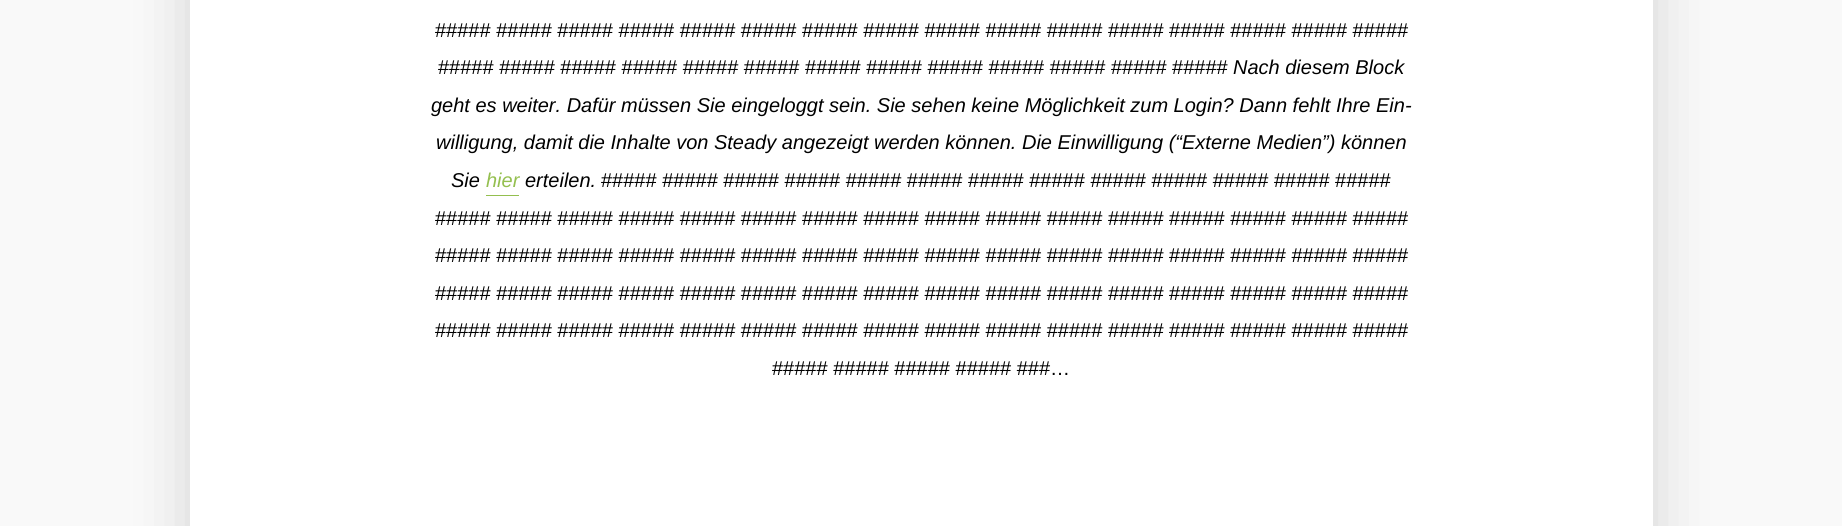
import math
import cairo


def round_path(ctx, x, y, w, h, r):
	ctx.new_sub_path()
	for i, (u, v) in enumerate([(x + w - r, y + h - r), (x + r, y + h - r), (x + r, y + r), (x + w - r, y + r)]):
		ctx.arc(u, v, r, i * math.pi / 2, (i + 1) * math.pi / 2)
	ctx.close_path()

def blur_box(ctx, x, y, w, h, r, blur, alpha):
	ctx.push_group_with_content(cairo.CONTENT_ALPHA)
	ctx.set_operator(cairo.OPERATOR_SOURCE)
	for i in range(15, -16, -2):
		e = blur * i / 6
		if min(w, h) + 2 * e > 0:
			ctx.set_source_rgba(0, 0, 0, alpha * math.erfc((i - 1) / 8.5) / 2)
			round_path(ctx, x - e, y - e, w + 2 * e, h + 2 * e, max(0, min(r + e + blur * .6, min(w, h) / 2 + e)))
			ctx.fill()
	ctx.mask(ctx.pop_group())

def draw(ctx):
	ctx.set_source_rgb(0.973, 0.973, 0.973)
	ctx.paint()
	ctx.set_source_rgb(0.004, 0.004, 0.004)
	blur_box(ctx, 190, -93, 1463, 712, 0, 31, 0.15)
	ctx.set_source_rgb(1, 1, 1)
	ctx.rectangle(190, 0, 1463, 526)
	ctx.fill()
	ctx.select_font_face('Liberation Sans')
	ctx.set_font_size(20)
	ctx.set_source_rgb(0, 0, 0)
	ctx.move_to(435, 37)
	ctx.show_text('##### ##### ##### ##### ##### ##### ##### ##### ##### ##### ##### ##### ##### ##### ##### #####')
	ctx.move_to(438, 74)
	ctx.show_text('##### ##### ##### ##### ##### ##### ##### ##### ##### ##### ##### ##### #####')
	ctx.select_font_face('Liberation Sans', cairo.FONT_SLANT_ITALIC)
	for x, y, s in [
		(1233, 74, 'Nach diesem Block'),
		(431, 112, 'geht es weiter. Dafür müssen Sie eingeloggt sein. Sie sehen keine Möglichkeit zum Login? Dann fehlt Ihre Ein-'),
		(436, 149, 'willigung, damit die Inhalte von Steady angezeigt werden können. Die Einwilligung (“Externe Medien”) können'),
		(451, 187, 'Sie'),
	]:
		ctx.move_to(x, y)
		ctx.show_text(s)
	ctx.set_source_rgb(0.58, 0.749, 0.31)
	ctx.move_to(486, 187)
	ctx.show_text('hier')
	ctx.rectangle(486, 195, 33, 1)
	ctx.fill()
	ctx.set_source_rgb(0, 0, 0)
	ctx.move_to(525, 187)
	ctx.show_text('erteilen.')
	ctx.select_font_face('Liberation Sans')
	for x, y, s in [
		(601, 187, '##### ##### ##### ##### ##### ##### ##### ##### ##### ##### ##### ##### #####'),
		(435, 225, '##### ##### ##### ##### ##### ##### ##### ##### ##### ##### ##### ##### ##### ##### ##### #####'),
		(435, 262, '##### ##### ##### ##### ##### ##### ##### ##### ##### ##### ##### ##### ##### ##### ##### #####'),
		(435, 300, '##### ##### ##### ##### ##### ##### ##### ##### ##### ##### ##### ##### ##### ##### ##### #####'),
		(435, 337, '##### ##### ##### ##### ##### ##### ##### ##### ##### ##### ##### ##### ##### ##### ##### #####'),
		(772, 375, '##### ##### ##### ##### ###…'),
	]:
		ctx.move_to(x, y)
		ctx.show_text(s)


surface = cairo.ImageSurface(cairo.FORMAT_RGB24, 1842, 526)
ctx = cairo.Context(surface)
options = cairo.FontOptions()
options.set_hint_metrics(cairo.HINT_METRICS_OFF)
options.set_hint_style(cairo.HINT_STYLE_NONE)
ctx.set_font_options(options)
ctx.set_miter_limit(4)
draw(ctx)
surface.write_to_png('image.png')
